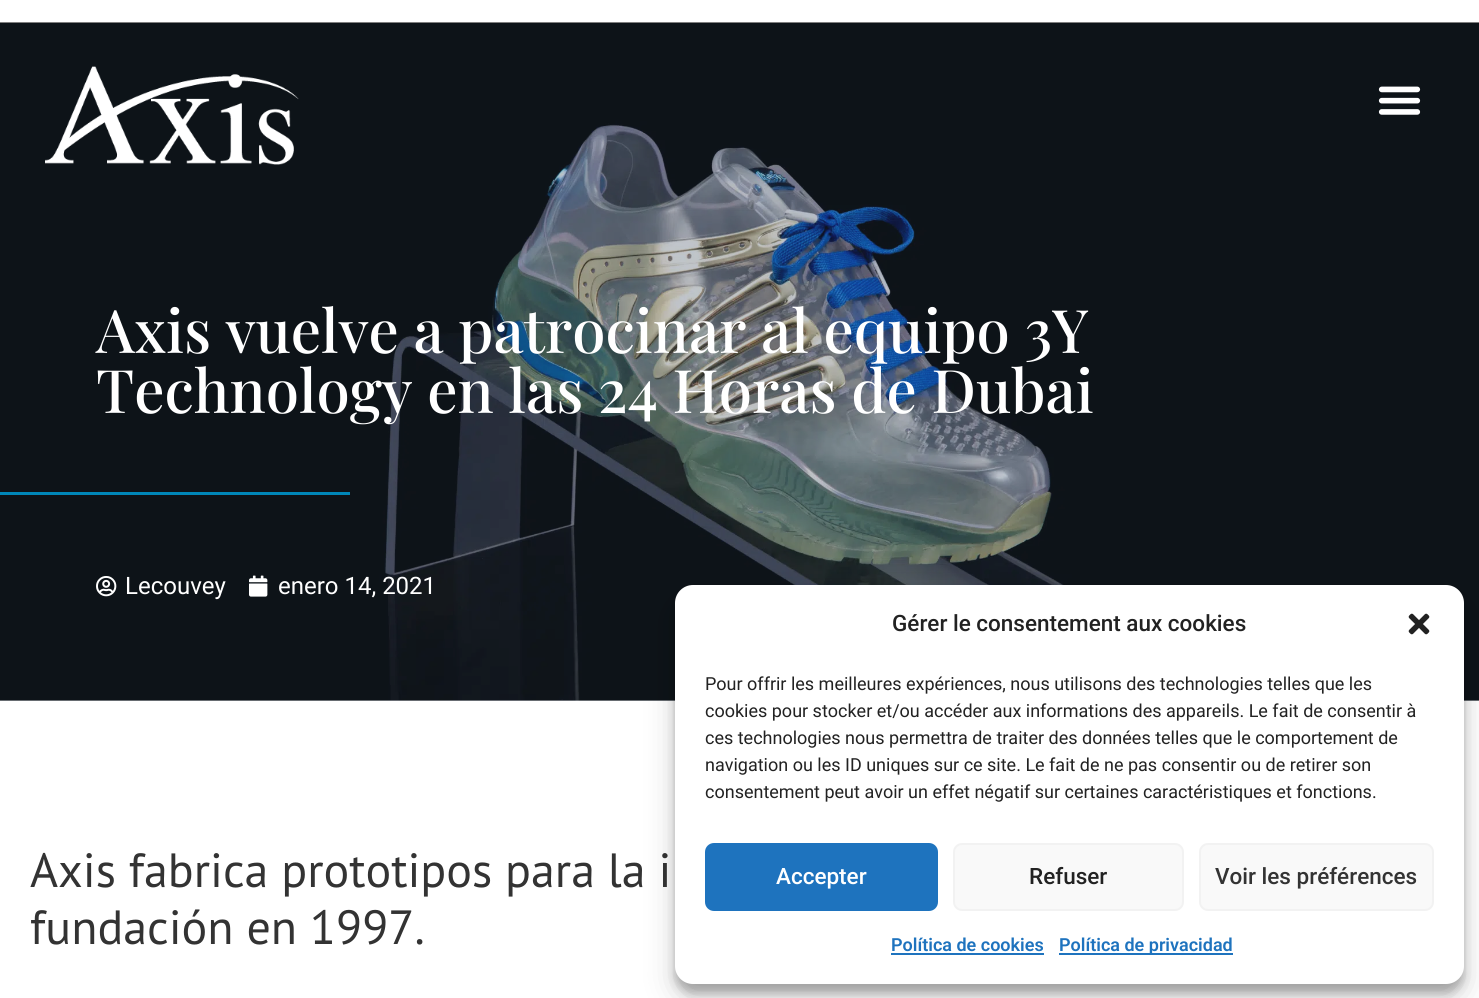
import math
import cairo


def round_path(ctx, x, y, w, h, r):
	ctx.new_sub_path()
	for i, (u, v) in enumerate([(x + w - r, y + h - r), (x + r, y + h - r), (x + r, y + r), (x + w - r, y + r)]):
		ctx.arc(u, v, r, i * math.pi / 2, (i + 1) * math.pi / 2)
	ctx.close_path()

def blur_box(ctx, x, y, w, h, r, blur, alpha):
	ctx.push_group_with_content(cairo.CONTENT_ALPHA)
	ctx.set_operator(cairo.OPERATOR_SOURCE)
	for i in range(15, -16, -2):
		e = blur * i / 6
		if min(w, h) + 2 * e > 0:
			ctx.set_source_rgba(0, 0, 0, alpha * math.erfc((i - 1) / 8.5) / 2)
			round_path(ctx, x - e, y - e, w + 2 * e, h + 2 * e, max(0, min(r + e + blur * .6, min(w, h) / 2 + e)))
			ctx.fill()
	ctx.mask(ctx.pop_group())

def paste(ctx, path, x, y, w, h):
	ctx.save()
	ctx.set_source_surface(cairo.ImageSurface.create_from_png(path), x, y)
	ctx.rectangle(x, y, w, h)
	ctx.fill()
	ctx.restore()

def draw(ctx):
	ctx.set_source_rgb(1, 1, 1)
	ctx.paint()
	ctx.set_source_rgb(0.753, 0.773, 0.796)
	ctx.rectangle(0, 700, 1479, 1)
	ctx.fill()
	paste(ctx, 'media/3.png', 0, 22, 1479, 679)
	paste(ctx, 'media/1.png', 45, 66, 254, 99)
	paste(ctx, 'media/2.png', 1378, 86, 43, 29)
	ctx.select_font_face('Playfair Display Medium')
	ctx.set_font_size(60)
	ctx.set_source_rgb(1, 1, 1)
	ctx.move_to(96, 353)
	ctx.show_text('Axis vuelve a patrocinar al equipo 3Y')
	ctx.move_to(96, 413)
	ctx.show_text('Technology en las 24 Horas de Dubai')
	ctx.set_source_rgb(0, 0.529, 0.722)
	ctx.rectangle(0, 492, 350, 3)
	ctx.fill()
	paste(ctx, 'media/4.png', 96, 576, 21, 21)
	ctx.select_font_face('Roboto')
	ctx.set_font_size(24)
	ctx.set_source_rgb(1, 1, 1)
	ctx.move_to(125, 594)
	ctx.show_text('Lecouvey')
	paste(ctx, 'media/5.png', 249, 575, 19, 22)
	ctx.move_to(278, 594)
	ctx.show_text('enero 14, 2021')
	ctx.select_font_face('PT Sans')
	ctx.set_font_size(48)
	ctx.set_source_rgb(0.2, 0.2, 0.2)
	ctx.move_to(30, 887)
	ctx.show_text('Axis fabrica prototipos para la i')
	ctx.move_to(30, 944)
	ctx.show_text('fundación en 1997.')
	ctx.set_source_rgb(0, 0, 0)
	blur_box(ctx, 675, 594, 789, 399, 18, 4.5, 0.23)
	blur_box(ctx, 675, 600, 789, 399, 18, 15, 0.19)
	ctx.set_source_rgb(1, 1, 1)
	round_path(ctx, 675, 585, 789, 399, 18)
	ctx.fill()
	ctx.select_font_face('Roboto Medium')
	ctx.set_font_size(22.5)
	ctx.set_source_rgb(0.133, 0.133, 0.133)
	ctx.move_to(892, 631)
	ctx.show_text('Gérer le consentement aux cookies')
	paste(ctx, 'media/6.png', 1408, 613, 22, 22)
	ctx.select_font_face('Roboto')
	ctx.set_font_size(18)
	for x, y, s in [
		(705, 690, 'Pour offrir les meilleures expériences, nous utilisons des technologies telles que les'),
		(705, 717, 'cookies pour stocker et/ou accéder aux informations des appareils. Le fait de consentir à'),
		(705, 744, 'ces technologies nous permettra de traiter des données telles que le comportement de'),
		(705, 771, 'navigation ou les ID uniques sur ce site. Le fait de ne pas consentir ou de retirer son'),
		(705, 798, 'consentement peut avoir un effet négatif sur certaines caractéristiques et fonctions.'),
	]:
		ctx.move_to(x, y)
		ctx.show_text(s)
	ctx.set_source_rgb(0.118, 0.451, 0.745)
	round_path(ctx, 706, 844, 231, 66, 8)
	ctx.fill_preserve()
	ctx.stroke()
	ctx.select_font_face('Roboto Medium')
	ctx.set_font_size(22.5)
	ctx.set_source_rgb(1, 1, 1)
	ctx.move_to(776, 884)
	ctx.show_text('Accepter')
	ctx.set_source_rgb(0.976, 0.976, 0.976)
	round_path(ctx, 954, 844, 229, 66, 8)
	ctx.fill_preserve()
	ctx.set_source_rgb(0.949, 0.949, 0.949)
	ctx.stroke()
	ctx.set_source_rgb(0.133, 0.133, 0.133)
	ctx.move_to(1029, 884)
	ctx.show_text('Refuser')
	ctx.set_source_rgb(0.976, 0.976, 0.976)
	round_path(ctx, 1200, 844, 233, 66, 8)
	ctx.fill_preserve()
	ctx.set_source_rgb(0.949, 0.949, 0.949)
	ctx.stroke()
	ctx.set_source_rgb(0.2, 0.2, 0.2)
	ctx.move_to(1215, 884)
	ctx.show_text('Voir les préférences')
	ctx.select_font_face('Roboto SemiBold')
	ctx.set_font_size(18)
	ctx.set_source_rgb(0.118, 0.451, 0.745)
	ctx.move_to(891, 951)
	ctx.show_text('Política de cookies')
	ctx.rectangle(891, 953, 153, 2)
	ctx.fill()
	ctx.rectangle(1059, 953, 174, 2)
	ctx.fill()
	ctx.move_to(1059, 951)
	ctx.show_text('Política de privacidad')


surface = cairo.ImageSurface(cairo.FORMAT_RGB24, 1479, 998)
ctx = cairo.Context(surface)
options = cairo.FontOptions()
options.set_hint_metrics(cairo.HINT_METRICS_OFF)
options.set_hint_style(cairo.HINT_STYLE_NONE)
ctx.set_font_options(options)
ctx.set_miter_limit(4)
draw(ctx)
surface.write_to_png('image.png')
